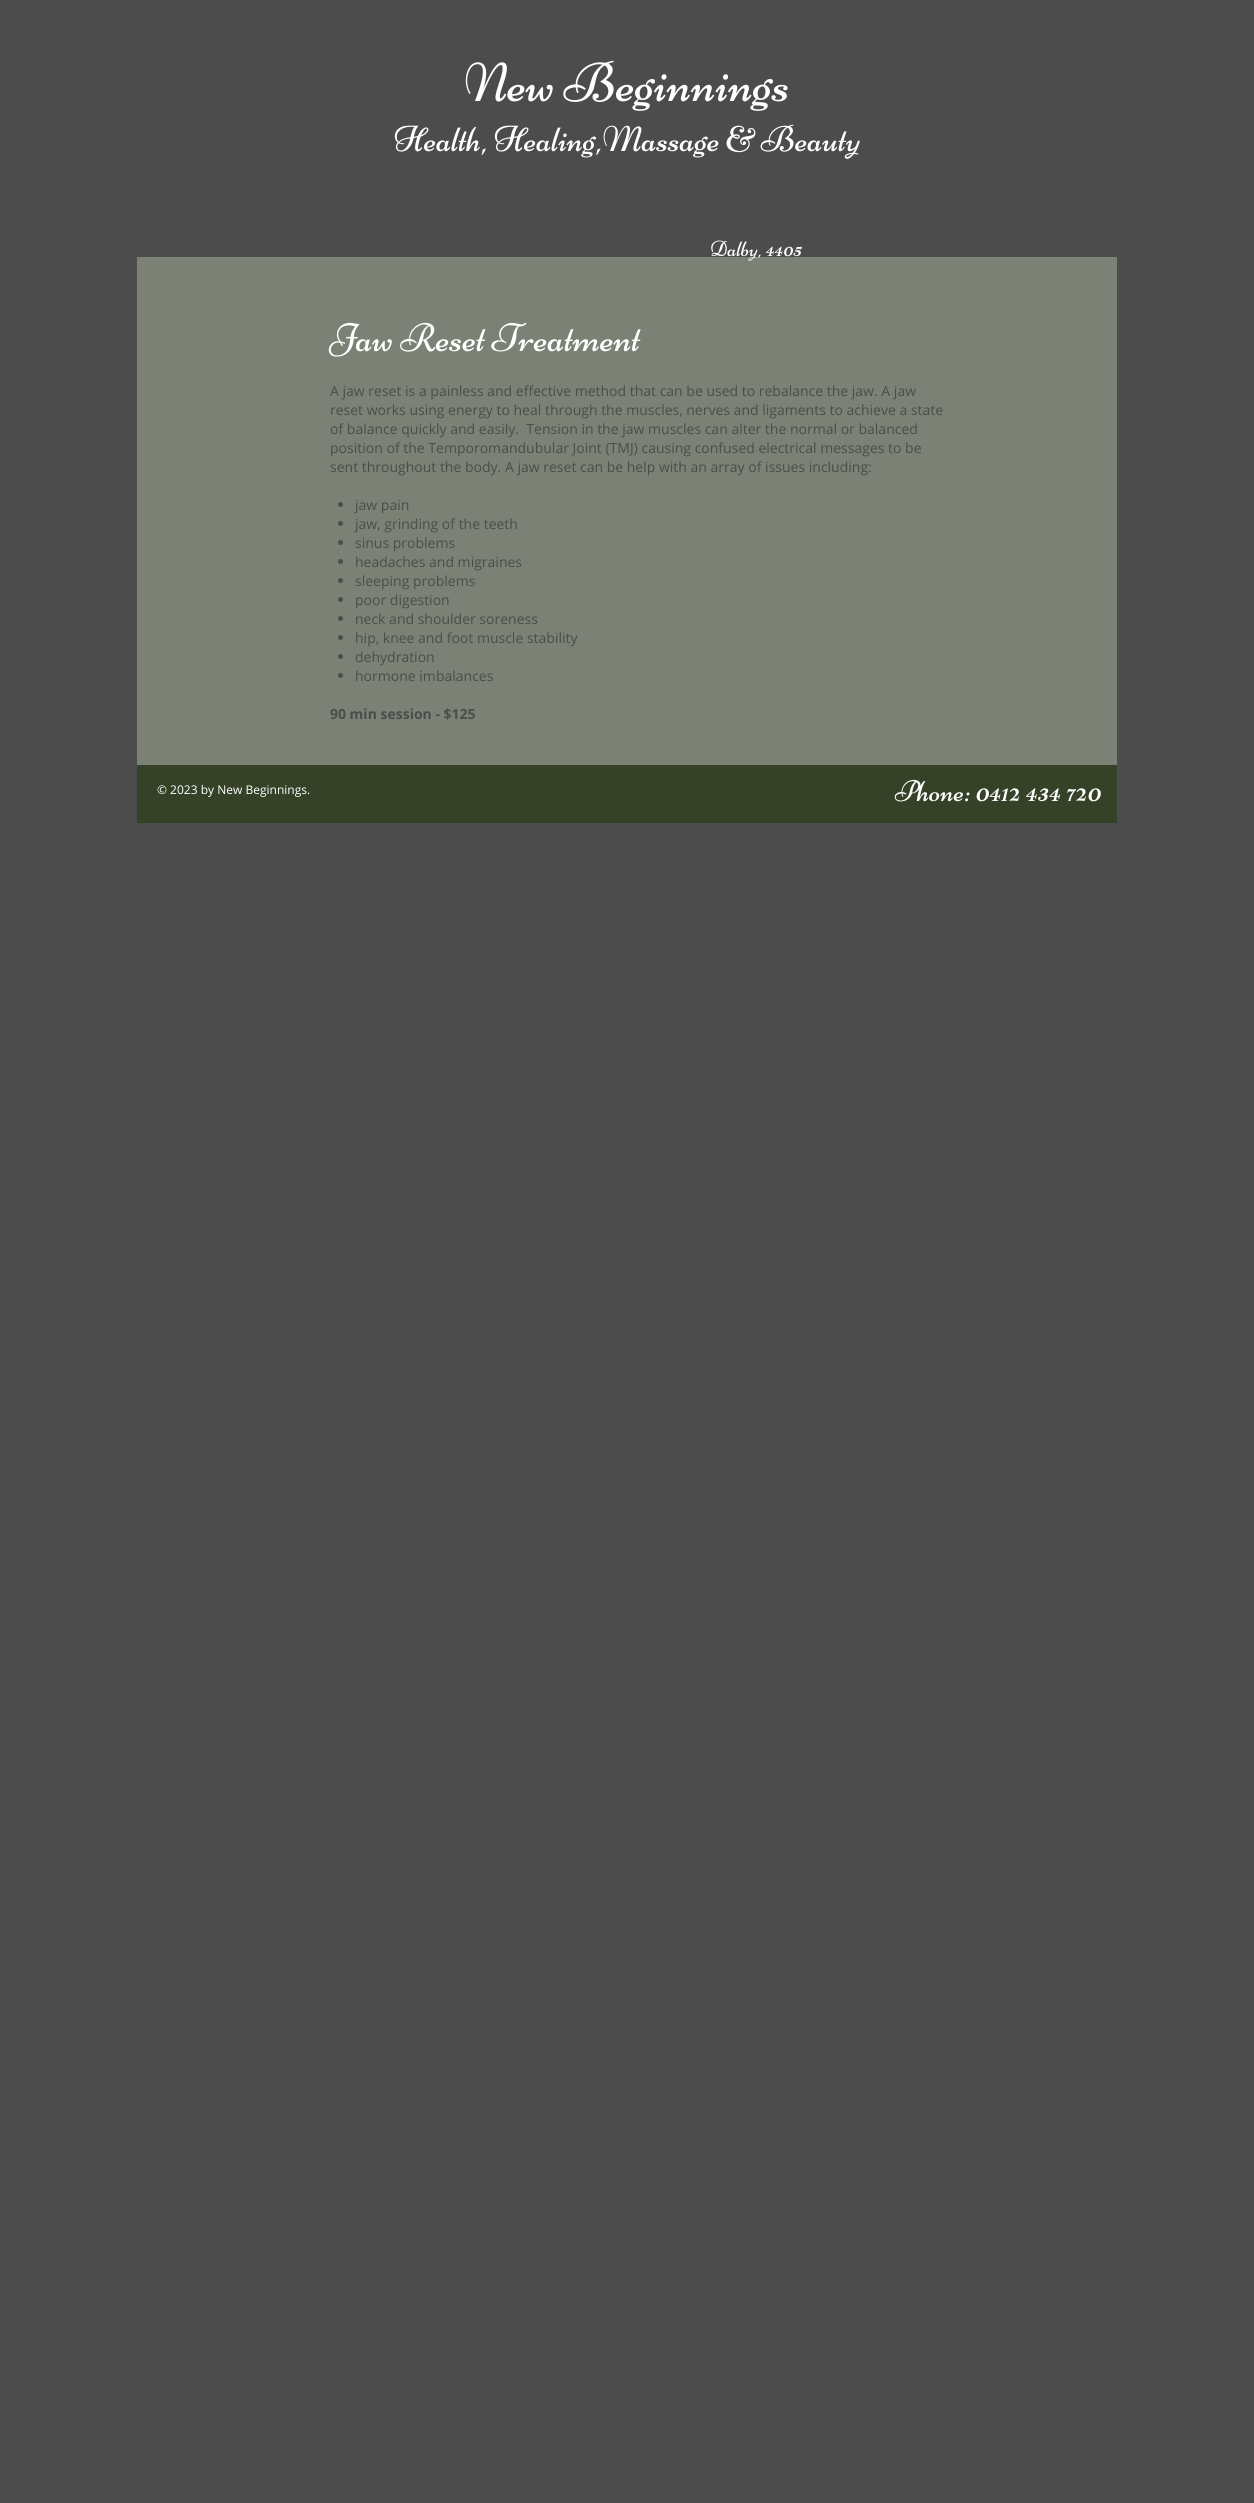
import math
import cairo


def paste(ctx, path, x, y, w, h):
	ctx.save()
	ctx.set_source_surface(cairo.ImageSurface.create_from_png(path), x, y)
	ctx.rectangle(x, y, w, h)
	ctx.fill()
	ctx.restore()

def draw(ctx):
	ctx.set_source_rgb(0.298, 0.298, 0.298)
	ctx.paint()
	paste(ctx, 'media/1.png', 465, 60, 323, 51)
	paste(ctx, 'media/2.png', 394, 124, 466, 35)
	paste(ctx, 'media/3.png', 711, 240, 91, 21)
	ctx.set_source_rgba(0.757, 0.812, 0.69, 0.4)
	ctx.rectangle(137, 257, 980, 508)
	ctx.fill()
	paste(ctx, 'media/4.png', 328, 322, 313, 35)
	ctx.select_font_face('Open Sans')
	ctx.set_font_size(14)
	ctx.set_source_rgb(0.298, 0.298, 0.298)
	for x, y, s in [
		(330, 396, 'A jaw reset is a painless and effective method that can be used to rebalance the jaw. A jaw'),
		(330, 415, 'reset works using energy to heal through the muscles, nerves and ligaments to achieve a state'),
		(330, 434, 'of balance quickly and easily.  Tension in the jaw muscles can alter the normal or balanced'),
		(330, 453, 'position of the Temporomandubular Joint (TMJ) causing confused electrical messages to be'),
		(330, 472, 'sent throughout the body. A jaw reset can be help with an array of issues including:'),
	]:
		ctx.move_to(x, y)
		ctx.show_text(s)
	ctx.new_path()
	ctx.arc(340.5, 504.5, 2.5, 0, 2 * math.pi)
	ctx.fill()
	ctx.move_to(355, 510)
	ctx.show_text('jaw pain')
	ctx.new_path()
	ctx.arc(340.5, 523.5, 2.5, 0, 2 * math.pi)
	ctx.fill()
	ctx.move_to(355, 529)
	ctx.show_text('jaw, grinding of the teeth')
	ctx.new_path()
	ctx.arc(340.5, 542.5, 2.5, 0, 2 * math.pi)
	ctx.fill()
	ctx.move_to(355, 548)
	ctx.show_text('sinus problems')
	ctx.new_path()
	ctx.arc(340.5, 561.5, 2.5, 0, 2 * math.pi)
	ctx.fill()
	ctx.move_to(355, 567)
	ctx.show_text('headaches and migraines')
	ctx.new_path()
	ctx.arc(340.5, 580.5, 2.5, 0, 2 * math.pi)
	ctx.fill()
	ctx.move_to(355, 586)
	ctx.show_text('sleeping problems')
	ctx.new_path()
	ctx.arc(340.5, 599.5, 2.5, 0, 2 * math.pi)
	ctx.fill()
	ctx.move_to(355, 605)
	ctx.show_text('poor digestion')
	ctx.new_path()
	ctx.arc(340.5, 618.5, 2.5, 0, 2 * math.pi)
	ctx.fill()
	ctx.move_to(355, 624)
	ctx.show_text('neck and shoulder soreness')
	ctx.new_path()
	ctx.arc(340.5, 637.5, 2.5, 0, 2 * math.pi)
	ctx.fill()
	ctx.move_to(355, 643)
	ctx.show_text('hip, knee and foot muscle stability')
	ctx.new_path()
	ctx.arc(340.5, 656.5, 2.5, 0, 2 * math.pi)
	ctx.fill()
	ctx.move_to(355, 662)
	ctx.show_text('dehydration')
	ctx.new_path()
	ctx.arc(340.5, 675.5, 2.5, 0, 2 * math.pi)
	ctx.fill()
	ctx.move_to(355, 681)
	ctx.show_text('hormone imbalances')
	ctx.select_font_face('Open Sans', cairo.FONT_SLANT_NORMAL, cairo.FONT_WEIGHT_BOLD)
	ctx.move_to(330, 719)
	ctx.show_text('90 min session - $125')
	ctx.set_source_rgb(0.212, 0.259, 0.153)
	ctx.rectangle(137, 765, 980, 58)
	ctx.fill()
	ctx.select_font_face('Open Sans')
	ctx.set_font_size(12)
	ctx.set_source_rgb(1, 1, 1)
	ctx.move_to(157, 794)
	ctx.show_text('© 2023 by New Beginnings.')
	paste(ctx, 'media/5.png', 894, 779, 207, 23)


surface = cairo.ImageSurface(cairo.FORMAT_RGB24, 1254, 2503)
ctx = cairo.Context(surface)
options = cairo.FontOptions()
options.set_hint_metrics(cairo.HINT_METRICS_OFF)
options.set_hint_style(cairo.HINT_STYLE_NONE)
ctx.set_font_options(options)
ctx.set_miter_limit(4)
draw(ctx)
surface.write_to_png('image.png')
